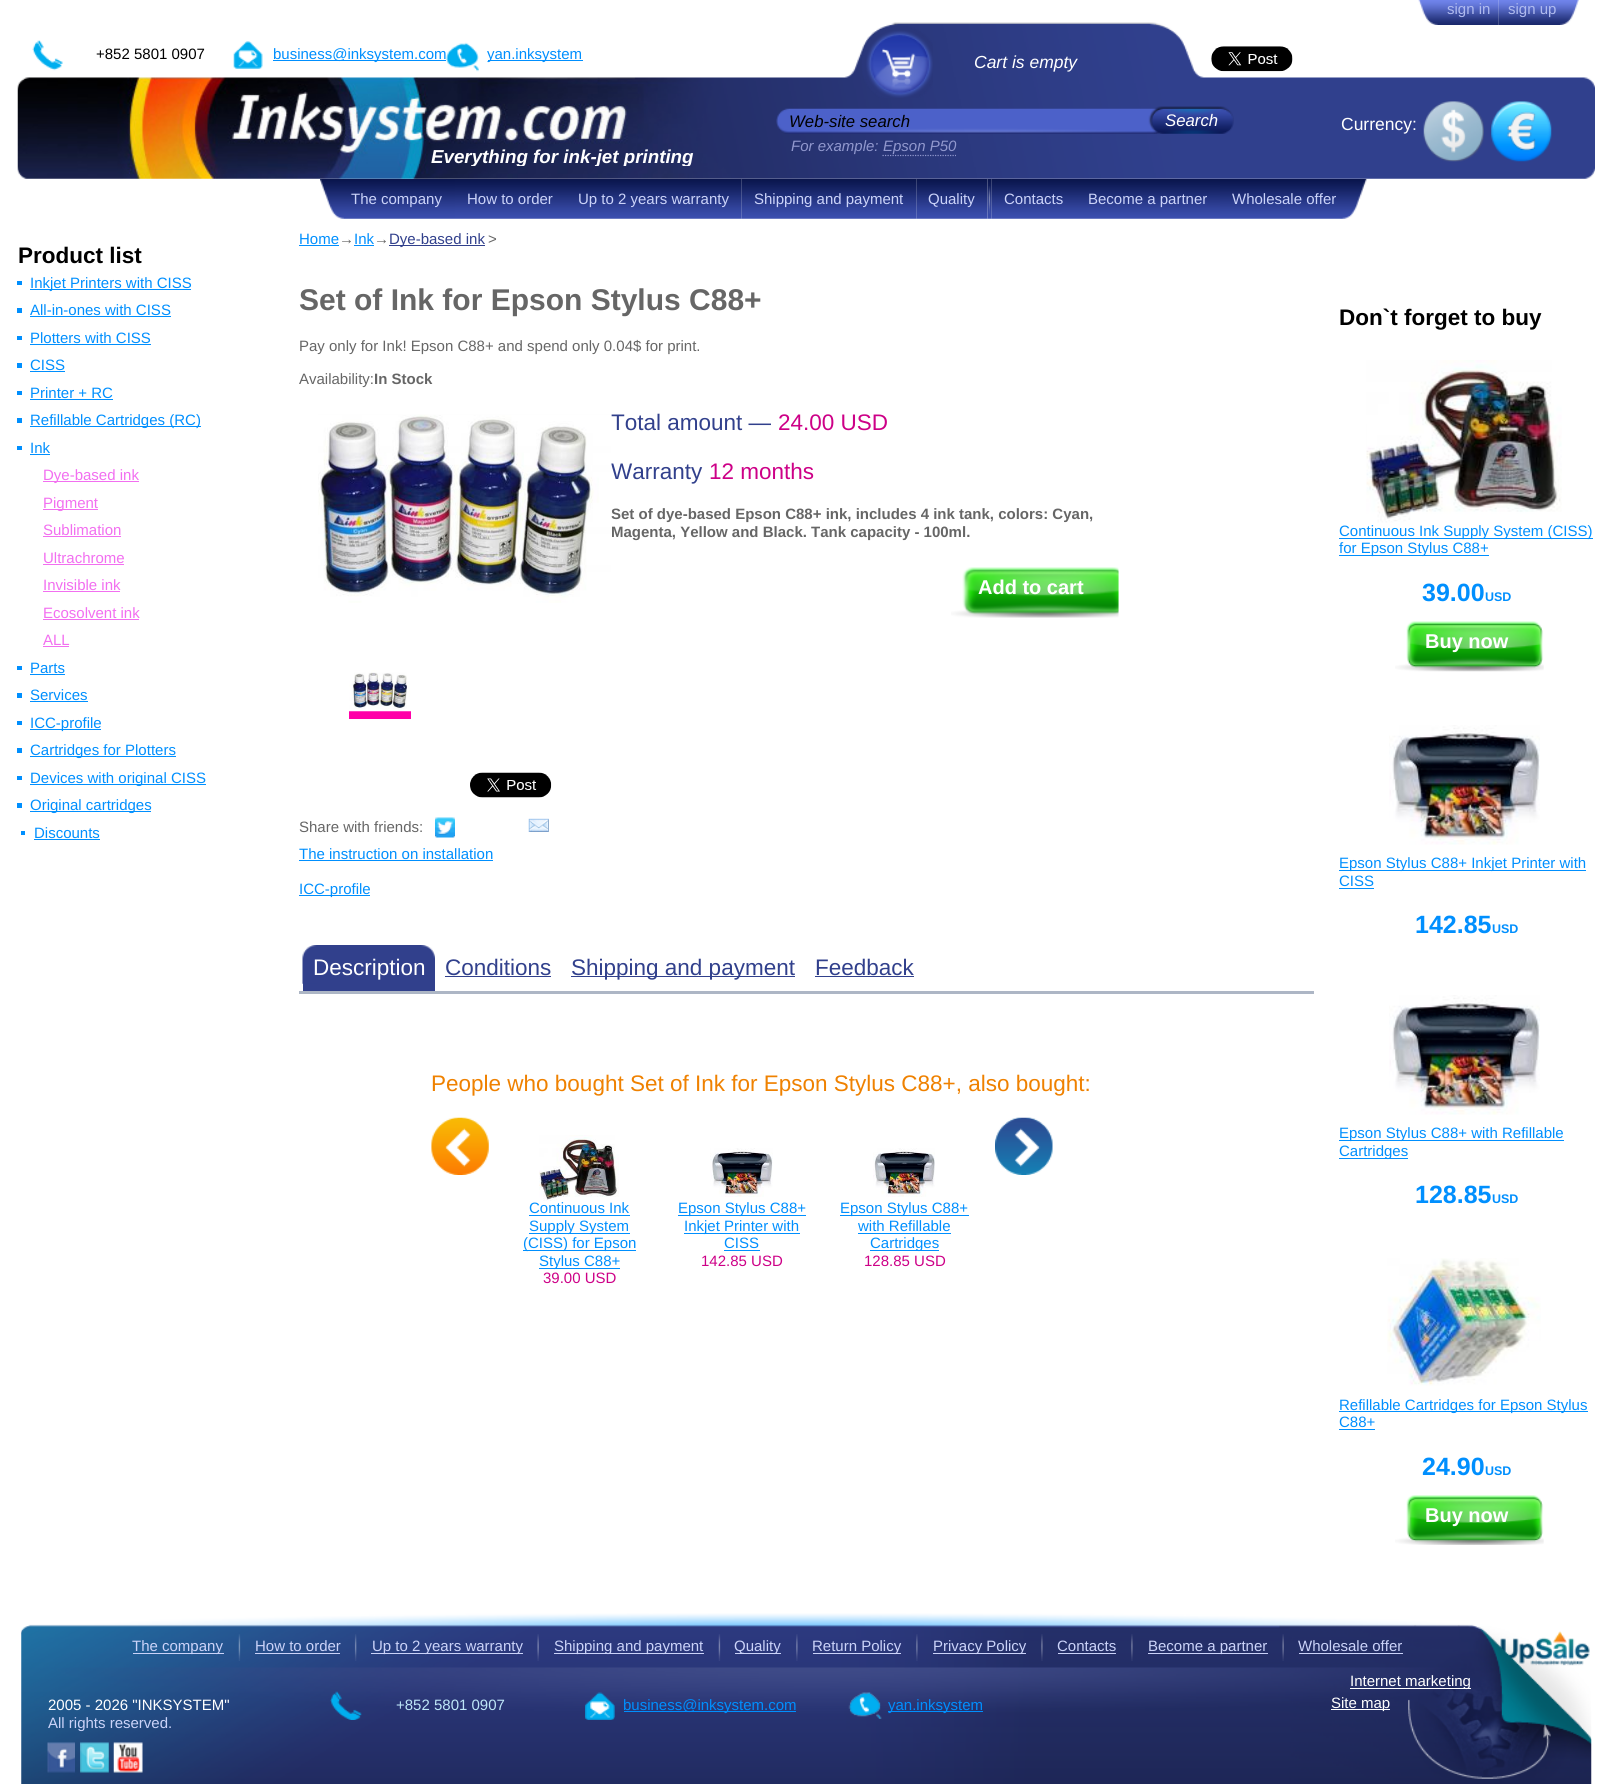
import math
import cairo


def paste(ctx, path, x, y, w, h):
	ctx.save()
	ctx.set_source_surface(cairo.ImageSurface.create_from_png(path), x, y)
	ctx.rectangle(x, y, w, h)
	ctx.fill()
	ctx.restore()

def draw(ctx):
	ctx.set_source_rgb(1, 1, 1)
	ctx.paint()
	paste(ctx, 'media/1.png', 17, 22, 1578, 157)
	paste(ctx, 'media/2.png', 1418, 0, 81, 25)
	ctx.select_font_face('Liberation Sans')
	ctx.set_font_size(15)
	ctx.set_source_rgb(0.69, 0.733, 0.937)
	ctx.move_to(1447, 14)
	ctx.show_text('sign in')
	paste(ctx, 'media/3.png', 1498, 0, 81, 25)
	ctx.move_to(1508, 14)
	ctx.show_text('sign up')
	paste(ctx, 'media/4.png', 32, 40, 31, 31)
	ctx.set_source_rgb(0, 0, 0)
	ctx.move_to(96, 59)
	ctx.show_text('+852 5801 0907')
	paste(ctx, 'media/5.png', 233, 41, 30, 28)
	ctx.set_source_rgb(0, 0.561, 0.996)
	ctx.rectangle(273, 60, 173, 1)
	ctx.fill()
	ctx.move_to(273, 59)
	ctx.show_text('business@inksystem.com')
	paste(ctx, 'media/6.png', 446, 42, 33, 30)
	ctx.rectangle(488, 60, 95, 1)
	ctx.fill()
	ctx.move_to(487, 59)
	ctx.show_text('yan.inksystem')
	paste(ctx, 'media/7.png', 862, 26, 71, 72)
	ctx.select_font_face('Liberation Sans', cairo.FONT_SLANT_ITALIC)
	ctx.set_font_size(17.5)
	ctx.set_source_rgb(1, 1, 1)
	ctx.move_to(974, 68)
	ctx.show_text('Cart is empty')
	paste(ctx, 'media/8.png', 1211, 46, 82, 26)
	paste(ctx, 'media/9.png', 776, 108, 386, 26)
	ctx.set_font_size(16.75)
	ctx.set_source_rgb(0, 0, 0)
	ctx.move_to(789, 127)
	ctx.show_text('Web-site search')
	paste(ctx, 'media/10.png', 1148, 106, 86, 28)
	ctx.set_source_rgb(1, 1, 1)
	ctx.move_to(1165, 126)
	ctx.show_text('Search')
	ctx.set_font_size(15)
	ctx.set_source_rgb(0.569, 0.596, 0.808)
	ctx.move_to(791, 151)
	ctx.show_text('For example:')
	ctx.new_path()
	ctx.move_to(882.5, 155.5)
	ctx.line_to(956, 155.5)
	ctx.set_line_width(1.2)
	ctx.set_dash([1.25, 1.25])
	ctx.stroke()
	ctx.move_to(883, 151)
	ctx.show_text('Epson P50')
	ctx.select_font_face('Liberation Sans')
	ctx.set_font_size(17.5)
	ctx.set_source_rgb(1, 1, 1)
	ctx.move_to(1341, 130)
	ctx.show_text('Currency:')
	paste(ctx, 'media/11.png', 1423, 101, 61, 61)
	paste(ctx, 'media/12.png', 1491, 101, 61, 61)
	ctx.save()
	ctx.rectangle(18, 101, 1577, 65)
	ctx.clip()
	ctx.select_font_face('Liberation Sans', cairo.FONT_SLANT_ITALIC, cairo.FONT_WEIGHT_BOLD)
	ctx.set_font_size(18.75)
	ctx.move_to(431, 163)
	ctx.show_text('Everything for ink-jet printing')
	ctx.restore()
	paste(ctx, 'media/13.png', 320, 178, 135, 41)
	ctx.set_font_size(15)
	ctx.set_source_rgb(0.796, 0.827, 0.976)
	ctx.move_to(351, 204)
	ctx.show_text('The company')
	paste(ctx, 'media/14.png', 455, 178, 110, 41)
	ctx.move_to(467, 204)
	ctx.show_text('How to order')
	paste(ctx, 'media/15.png', 565, 178, 177, 41)
	ctx.move_to(578, 204)
	ctx.show_text('Up to 2 years warranty')
	paste(ctx, 'media/16.png', 741, 178, 176, 41)
	ctx.move_to(754, 204)
	ctx.show_text('Shipping and payment')
	paste(ctx, 'media/17.png', 916, 178, 72, 41)
	ctx.move_to(928, 204)
	ctx.show_text('Quality')
	paste(ctx, 'media/18.png', 987, 178, 5, 41)
	paste(ctx, 'media/19.png', 988, 186, 3, 28)
	paste(ctx, 'media/20.png', 991, 178, 84, 41)
	ctx.move_to(1004, 204)
	ctx.show_text('Contacts')
	paste(ctx, 'media/21.png', 1075, 178, 145, 41)
	ctx.move_to(1088, 204)
	ctx.show_text('Become a partner')
	paste(ctx, 'media/22.png', 1220, 178, 147, 41)
	ctx.move_to(1232, 204)
	ctx.show_text('Wholesale offer')
	ctx.select_font_face('Liberation Sans', cairo.FONT_SLANT_NORMAL, cairo.FONT_WEIGHT_BOLD)
	ctx.set_font_size(22.5)
	ctx.set_source_rgb(0, 0, 0)
	ctx.move_to(18, 263)
	ctx.show_text('Product list')
	ctx.set_source_rgb(0, 0.561, 0.996)
	ctx.rectangle(30, 289, 161, 1)
	ctx.fill()
	ctx.select_font_face('Liberation Sans')
	ctx.set_font_size(15)
	ctx.move_to(30, 288)
	ctx.show_text('Inkjet Printers with CISS')
	ctx.rectangle(17, 281, 5, 4)
	ctx.fill()
	ctx.move_to(30, 315)
	ctx.show_text('All-in-ones with CISS')
	ctx.rectangle(17, 308, 5, 5)
	ctx.fill()
	ctx.rectangle(30, 316, 141, 1)
	ctx.fill()
	ctx.move_to(30, 343)
	ctx.show_text('Plotters with CISS')
	ctx.rectangle(17, 336, 5, 4)
	ctx.fill()
	ctx.rectangle(30, 344, 121, 1)
	ctx.fill()
	ctx.move_to(30, 370)
	ctx.show_text('CISS')
	ctx.rectangle(17, 363, 5, 5)
	ctx.fill()
	ctx.rectangle(30, 371, 35, 1)
	ctx.fill()
	ctx.move_to(30, 398)
	ctx.show_text('Printer + RC')
	ctx.rectangle(17, 391, 5, 4)
	ctx.rectangle(30, 399, 83, 1)
	ctx.rectangle(30, 426, 171, 1)
	ctx.fill()
	ctx.move_to(30, 425)
	ctx.show_text('Refillable Cartridges (RC)')
	ctx.rectangle(17, 418, 5, 5)
	ctx.fill()
	ctx.move_to(30, 453)
	ctx.show_text('Ink')
	ctx.rectangle(17, 446, 5, 4)
	ctx.rectangle(30, 454, 20, 1)
	ctx.fill()
	ctx.set_source_rgb(0.949, 0.435, 0.941)
	ctx.rectangle(43, 481, 96, 1)
	ctx.fill()
	ctx.move_to(43, 480)
	ctx.show_text('Dye-based ink')
	ctx.rectangle(43, 509, 55, 1)
	ctx.fill()
	ctx.move_to(43, 508)
	ctx.show_text('Pigment')
	ctx.move_to(43, 535)
	ctx.show_text('Sublimation')
	ctx.rectangle(43, 536, 78, 1)
	ctx.fill()
	ctx.move_to(43, 563)
	ctx.show_text('Ultrachrome')
	ctx.rectangle(43, 564, 81, 1)
	ctx.fill()
	ctx.move_to(43, 590)
	ctx.show_text('Invisible ink')
	ctx.rectangle(43, 591, 77, 1)
	ctx.fill()
	ctx.move_to(43, 618)
	ctx.show_text('Ecosolvent ink')
	ctx.rectangle(43, 619, 96, 1)
	ctx.fill()
	ctx.move_to(43, 645)
	ctx.show_text('ALL')
	ctx.rectangle(43, 646, 26, 1)
	ctx.fill()
	ctx.set_source_rgb(0, 0.561, 0.996)
	ctx.move_to(30, 673)
	ctx.show_text('Parts')
	ctx.rectangle(17, 666, 5, 4)
	ctx.fill()
	ctx.rectangle(30, 674, 35, 1)
	ctx.fill()
	ctx.move_to(30, 700)
	ctx.show_text('Services')
	ctx.rectangle(17, 693, 5, 5)
	ctx.rectangle(30, 701, 58, 1)
	ctx.rectangle(30, 729, 71, 1)
	ctx.fill()
	ctx.move_to(30, 728)
	ctx.show_text('ICC-profile')
	ctx.rectangle(17, 721, 5, 4)
	ctx.fill()
	ctx.rectangle(30, 756, 146, 1)
	ctx.fill()
	ctx.move_to(30, 755)
	ctx.show_text('Cartridges for Plotters')
	ctx.rectangle(17, 748, 5, 5)
	ctx.fill()
	ctx.rectangle(30, 784, 176, 1)
	ctx.fill()
	ctx.move_to(30, 783)
	ctx.show_text('Devices with original CISS')
	ctx.rectangle(17, 776, 5, 4)
	ctx.fill()
	ctx.rectangle(30, 811, 121, 1)
	ctx.fill()
	ctx.move_to(30, 810)
	ctx.show_text('Original cartridges')
	ctx.rectangle(17, 803, 5, 5)
	ctx.fill()
	ctx.move_to(34, 838)
	ctx.show_text('Discounts')
	ctx.rectangle(21, 831, 4, 4)
	ctx.fill()
	ctx.rectangle(34, 839, 66, 1)
	ctx.fill()
	ctx.move_to(299, 244)
	ctx.show_text('Home')
	ctx.select_font_face('Liberation Sans', cairo.FONT_SLANT_ITALIC)
	ctx.set_source_rgb(0.4, 0.4, 0.4)
	ctx.move_to(339, 244)
	ctx.show_text('→')
	ctx.set_source_rgb(0, 0.561, 0.996)
	ctx.rectangle(299, 245, 40, 1)
	ctx.fill()
	ctx.select_font_face('Liberation Sans')
	ctx.move_to(354, 244)
	ctx.show_text('Ink')
	ctx.select_font_face('Liberation Sans', cairo.FONT_SLANT_ITALIC)
	ctx.set_source_rgb(0.4, 0.4, 0.4)
	ctx.move_to(374, 244)
	ctx.show_text('→')
	ctx.set_source_rgb(0, 0.561, 0.996)
	ctx.rectangle(354, 245, 20, 1)
	ctx.fill()
	ctx.set_source_rgb(0.192, 0.251, 0.549)
	ctx.rectangle(389, 245, 96, 1)
	ctx.fill()
	ctx.select_font_face('Liberation Sans')
	ctx.move_to(389, 244)
	ctx.show_text('Dye-based ink')
	ctx.set_source_rgb(0.4, 0.4, 0.4)
	ctx.move_to(488, 244)
	ctx.show_text('>')
	ctx.select_font_face('Liberation Sans', cairo.FONT_SLANT_NORMAL, cairo.FONT_WEIGHT_BOLD)
	ctx.set_font_size(30)
	ctx.move_to(299, 310)
	ctx.show_text('Set of Ink for Epson Stylus C88+')
	ctx.select_font_face('Liberation Sans')
	ctx.set_font_size(15)
	ctx.move_to(299, 351)
	ctx.show_text('Pay only for Ink! Epson C88+ and spend only 0.04$ for print.')
	ctx.move_to(299, 384)
	ctx.show_text('Availability:')
	ctx.select_font_face('Liberation Sans', cairo.FONT_SLANT_NORMAL, cairo.FONT_WEIGHT_BOLD)
	ctx.move_to(374, 384)
	ctx.show_text('In Stock')
	ctx.select_font_face('Liberation Sans')
	ctx.set_font_size(22.5)
	ctx.set_source_rgb(0.192, 0.251, 0.549)
	ctx.move_to(611, 430)
	ctx.show_text('Total amount —')
	ctx.set_source_rgb(0.804, 0, 0.529)
	ctx.move_to(778, 430)
	ctx.show_text('24.00 USD')
	ctx.set_source_rgb(0.192, 0.251, 0.549)
	ctx.move_to(611, 479)
	ctx.show_text('Warranty')
	ctx.set_source_rgb(0.804, 0, 0.529)
	ctx.move_to(709, 479)
	ctx.show_text('12 months')
	ctx.select_font_face('Liberation Sans', cairo.FONT_SLANT_NORMAL, cairo.FONT_WEIGHT_BOLD)
	ctx.set_font_size(15)
	ctx.set_source_rgb(0.4, 0.4, 0.4)
	ctx.move_to(611, 519)
	ctx.show_text('Set of dye-based Epson C88+ ink, includes 4 ink tank, colors: Cyan,')
	ctx.move_to(611, 537)
	ctx.show_text('Magenta, Yellow and Black. Tank capacity - 100ml.')
	paste(ctx, 'media/23.png', 951, 567, 168, 51)
	ctx.set_font_size(20)
	ctx.set_source_rgb(1, 1, 1)
	ctx.move_to(978, 594)
	ctx.show_text('Add to cart')
	paste(ctx, 'media/24.png', 318, 414, 294, 189)
	ctx.set_source_rgb(1, 0, 0.659)
	ctx.rectangle(349, 711, 62, 8)
	ctx.fill()
	paste(ctx, 'media/25.png', 349, 670, 62, 42)
	paste(ctx, 'media/26.png', 470, 772, 82, 26)
	ctx.select_font_face('Liberation Sans')
	ctx.set_font_size(15)
	ctx.set_source_rgb(0.4, 0.4, 0.4)
	ctx.move_to(299, 832)
	ctx.show_text('Share with friends:')
	paste(ctx, 'media/27.png', 435, 817, 20, 21)
	paste(ctx, 'media/28.png', 528, 818, 21, 14)
	ctx.set_source_rgb(0, 0.561, 0.996)
	ctx.move_to(299, 859)
	ctx.show_text('The instruction on installation')
	ctx.rectangle(299, 860, 194, 1)
	ctx.fill()
	ctx.rectangle(299, 895, 71, 1)
	ctx.fill()
	ctx.move_to(299, 894)
	ctx.show_text('ICC-profile')
	ctx.set_source_rgb(0.678, 0.714, 0.773)
	ctx.rectangle(299, 991, 1015, 3)
	ctx.fill()
	ctx.set_source_rgb(0.192, 0.251, 0.549)
	ctx.rectangle(303, 945, 132, 46)
	ctx.fill()
	paste(ctx, 'media/29.png', 302, 945, 15, 39)
	paste(ctx, 'media/30.png', 421, 945, 14, 14)
	ctx.set_font_size(22.5)
	ctx.set_source_rgb(1, 1, 1)
	ctx.move_to(313, 975)
	ctx.show_text('Description')
	ctx.set_source_rgb(0.192, 0.251, 0.549)
	ctx.move_to(445, 975)
	ctx.show_text('Conditions')
	ctx.rectangle(445, 976, 106, 1)
	ctx.fill()
	ctx.rectangle(571, 976, 224, 1)
	ctx.fill()
	ctx.move_to(571, 975)
	ctx.show_text('Shipping and payment')
	ctx.move_to(815, 975)
	ctx.show_text('Feedback')
	ctx.rectangle(815, 976, 99, 1)
	ctx.fill()
	ctx.set_source_rgb(0.937, 0.506, 0)
	ctx.move_to(431, 1091)
	ctx.show_text('People who bought Set of Ink for Epson Stylus C88+, also bought:')
	paste(ctx, 'media/31.png', 431, 1117, 58, 58)
	paste(ctx, 'media/32.png', 995, 1117, 58, 58)
	paste(ctx, 'media/33.png', 539, 1135, 80, 66)
	ctx.set_font_size(15)
	ctx.set_source_rgb(0, 0.561, 0.996)
	ctx.move_to(529, 1213)
	ctx.show_text('Continuous Ink')
	ctx.rectangle(529, 1215, 101, 1)
	ctx.fill()
	ctx.rectangle(529, 1233, 101, 1)
	ctx.fill()
	ctx.move_to(529, 1231)
	ctx.show_text('Supply System')
	ctx.rectangle(523, 1250, 113, 1)
	ctx.fill()
	ctx.move_to(523, 1248)
	ctx.show_text('(CISS) for Epson')
	ctx.rectangle(539, 1268, 81, 1)
	ctx.fill()
	ctx.move_to(539, 1266)
	ctx.show_text('Stylus C88+')
	ctx.set_source_rgb(0.804, 0, 0.529)
	ctx.move_to(543, 1283)
	ctx.show_text('39.00 USD')
	paste(ctx, 'media/34.png', 710, 1148, 63, 49)
	ctx.set_source_rgb(0, 0.561, 0.996)
	ctx.rectangle(678, 1215, 128, 1)
	ctx.fill()
	ctx.move_to(678, 1213)
	ctx.show_text('Epson Stylus C88+')
	ctx.rectangle(684, 1233, 116, 1)
	ctx.fill()
	ctx.move_to(684, 1231)
	ctx.show_text('Inkjet Printer with')
	ctx.move_to(724, 1248)
	ctx.show_text('CISS')
	ctx.rectangle(724, 1250, 36, 1)
	ctx.fill()
	ctx.set_source_rgb(0.804, 0, 0.529)
	ctx.move_to(701, 1266)
	ctx.show_text('142.85 USD')
	paste(ctx, 'media/35.png', 873, 1148, 62, 49)
	ctx.set_source_rgb(0, 0.561, 0.996)
	ctx.rectangle(840, 1215, 129, 1)
	ctx.fill()
	ctx.move_to(840, 1213)
	ctx.show_text('Epson Stylus C88+')
	ctx.move_to(858, 1231)
	ctx.show_text('with Refillable')
	ctx.rectangle(858, 1233, 93, 1)
	ctx.fill()
	ctx.rectangle(870, 1250, 69, 1)
	ctx.fill()
	ctx.move_to(870, 1248)
	ctx.show_text('Cartridges')
	ctx.set_source_rgb(0.804, 0, 0.529)
	ctx.move_to(864, 1266)
	ctx.show_text('128.85 USD')
	ctx.select_font_face('Liberation Sans', cairo.FONT_SLANT_NORMAL, cairo.FONT_WEIGHT_BOLD)
	ctx.set_font_size(22.5)
	ctx.set_source_rgb(0, 0, 0)
	ctx.move_to(1339, 325)
	ctx.show_text('Don`t forget to buy')
	paste(ctx, 'media/36.png', 1366, 360, 196, 163)
	ctx.set_source_rgb(0, 0.561, 0.996)
	ctx.rectangle(1339, 538, 254, 1)
	ctx.fill()
	ctx.select_font_face('Liberation Sans')
	ctx.set_font_size(15)
	ctx.move_to(1339, 536)
	ctx.show_text('Continuous Ink Supply System (CISS)')
	ctx.rectangle(1339, 555, 150, 1)
	ctx.fill()
	ctx.move_to(1339, 553)
	ctx.show_text('for Epson Stylus C88+')
	ctx.select_font_face('Liberation Sans', cairo.FONT_SLANT_NORMAL, cairo.FONT_WEIGHT_BOLD)
	ctx.set_font_size(25)
	ctx.move_to(1422, 601)
	ctx.show_text('39.00')
	ctx.set_font_size(12.5)
	ctx.move_to(1485, 601)
	ctx.show_text('USD')
	paste(ctx, 'media/37.png', 1395, 621, 149, 51)
	ctx.set_font_size(20)
	ctx.set_source_rgb(1, 1, 1)
	ctx.move_to(1425, 648)
	ctx.show_text('Buy now')
	paste(ctx, 'media/38.png', 1389, 725, 151, 120)
	ctx.set_source_rgb(0, 0.561, 0.996)
	ctx.rectangle(1339, 870, 247, 1)
	ctx.fill()
	ctx.select_font_face('Liberation Sans')
	ctx.set_font_size(15)
	ctx.move_to(1339, 868)
	ctx.show_text('Epson Stylus C88+ Inkjet Printer with')
	ctx.move_to(1339, 886)
	ctx.show_text('CISS')
	ctx.rectangle(1339, 888, 35, 1)
	ctx.fill()
	ctx.select_font_face('Liberation Sans', cairo.FONT_SLANT_NORMAL, cairo.FONT_WEIGHT_BOLD)
	ctx.set_font_size(25)
	ctx.move_to(1415, 933)
	ctx.show_text('142.85')
	ctx.set_font_size(12.5)
	ctx.move_to(1492, 933)
	ctx.show_text('USD')
	paste(ctx, 'media/38.png', 1389, 995, 151, 120)
	ctx.rectangle(1339, 1140, 225, 1)
	ctx.fill()
	ctx.select_font_face('Liberation Sans')
	ctx.set_font_size(15)
	ctx.move_to(1339, 1138)
	ctx.show_text('Epson Stylus C88+ with Refillable')
	ctx.rectangle(1339, 1158, 69, 1)
	ctx.fill()
	ctx.move_to(1339, 1156)
	ctx.show_text('Cartridges')
	ctx.select_font_face('Liberation Sans', cairo.FONT_SLANT_NORMAL, cairo.FONT_WEIGHT_BOLD)
	ctx.set_font_size(25)
	ctx.move_to(1415, 1203)
	ctx.show_text('128.85')
	ctx.set_font_size(12.5)
	ctx.move_to(1492, 1203)
	ctx.show_text('USD')
	paste(ctx, 'media/39.png', 1387, 1258, 154, 128)
	ctx.rectangle(1339, 1411, 249, 1)
	ctx.fill()
	ctx.select_font_face('Liberation Sans')
	ctx.set_font_size(15)
	ctx.move_to(1339, 1410)
	ctx.show_text('Refillable Cartridges for Epson Stylus')
	ctx.move_to(1339, 1427)
	ctx.show_text('C88+')
	ctx.rectangle(1339, 1429, 36, 1)
	ctx.fill()
	ctx.select_font_face('Liberation Sans', cairo.FONT_SLANT_NORMAL, cairo.FONT_WEIGHT_BOLD)
	ctx.set_font_size(25)
	ctx.move_to(1422, 1475)
	ctx.show_text('24.90')
	ctx.set_font_size(12.5)
	ctx.move_to(1485, 1475)
	ctx.show_text('USD')
	paste(ctx, 'media/40.png', 1395, 1495, 149, 50)
	ctx.set_font_size(20)
	ctx.set_source_rgb(1, 1, 1)
	ctx.move_to(1425, 1522)
	ctx.show_text('Buy now')
	paste(ctx, 'media/41.png', 21, 1613, 1571, 171)
	ctx.set_source_rgb(0.796, 0.827, 0.976)
	ctx.rectangle(133, 1653, 91, 1)
	ctx.fill()
	ctx.select_font_face('Liberation Sans')
	ctx.set_font_size(15)
	ctx.move_to(132, 1651)
	ctx.show_text('The company')
	paste(ctx, 'media/42.png', 238, 1634, 3, 27)
	ctx.move_to(255, 1651)
	ctx.show_text('How to order')
	ctx.rectangle(255, 1653, 85, 1)
	ctx.fill()
	paste(ctx, 'media/43.png', 354, 1634, 3, 27)
	ctx.rectangle(371, 1653, 152, 1)
	ctx.fill()
	ctx.move_to(372, 1651)
	ctx.show_text('Up to 2 years warranty')
	paste(ctx, 'media/44.png', 537, 1634, 2, 27)
	ctx.rectangle(554, 1653, 150, 1)
	ctx.fill()
	ctx.move_to(554, 1651)
	ctx.show_text('Shipping and payment')
	paste(ctx, 'media/45.png', 718, 1634, 3, 27)
	ctx.rectangle(735, 1653, 46, 1)
	ctx.fill()
	ctx.move_to(734, 1651)
	ctx.show_text('Quality')
	paste(ctx, 'media/46.png', 796, 1634, 2, 27)
	ctx.rectangle(813, 1653, 88, 1)
	ctx.fill()
	ctx.move_to(812, 1651)
	ctx.show_text('Return Policy')
	paste(ctx, 'media/47.png', 916, 1634, 2, 27)
	ctx.rectangle(933, 1653, 93, 1)
	ctx.fill()
	ctx.move_to(933, 1651)
	ctx.show_text('Privacy Policy')
	paste(ctx, 'media/48.png', 1041, 1634, 2, 27)
	ctx.move_to(1057, 1651)
	ctx.show_text('Contacts')
	ctx.rectangle(1058, 1653, 58, 1)
	ctx.fill()
	paste(ctx, 'media/48.png', 1131, 1634, 2, 27)
	ctx.rectangle(1148, 1653, 120, 1)
	ctx.fill()
	ctx.move_to(1148, 1651)
	ctx.show_text('Become a partner')
	paste(ctx, 'media/49.png', 1282, 1634, 2, 27)
	ctx.move_to(1298, 1651)
	ctx.show_text('Wholesale offer')
	ctx.rectangle(1299, 1653, 104, 1)
	ctx.fill()
	ctx.set_source_rgb(1, 1, 1)
	ctx.rectangle(1350, 1688, 121, 1)
	ctx.fill()
	ctx.move_to(1350, 1686)
	ctx.show_text('Internet marketing')
	ctx.move_to(48, 1710)
	ctx.show_text('2005 - 2026 "INKSYSTEM"')
	ctx.set_source_rgb(0.796, 0.827, 0.976)
	ctx.move_to(48, 1728)
	ctx.show_text('All rights reserved.')
	paste(ctx, 'media/50.png', 47, 1742, 28, 31)
	paste(ctx, 'media/51.png', 80, 1742, 29, 31)
	paste(ctx, 'media/52.png', 113, 1742, 30, 31)
	paste(ctx, 'media/53.png', 330, 1691, 32, 29)
	ctx.set_source_rgb(0.745, 0.906, 0.969)
	ctx.move_to(396, 1710)
	ctx.show_text('+852 5801 0907')
	paste(ctx, 'media/54.png', 585, 1692, 30, 28)
	ctx.set_source_rgb(0, 0.561, 0.996)
	ctx.rectangle(624, 1711, 172, 1)
	ctx.fill()
	ctx.move_to(623, 1710)
	ctx.show_text('business@inksystem.com')
	paste(ctx, 'media/55.png', 848, 1692, 34, 27)
	ctx.rectangle(888, 1711, 95, 1)
	ctx.fill()
	ctx.move_to(888, 1710)
	ctx.show_text('yan.inksystem')
	ctx.set_source_rgb(1, 1, 1)
	ctx.rectangle(1331, 1709, 59, 1)
	ctx.fill()
	ctx.move_to(1331, 1708)
	ctx.show_text('Site map')


surface = cairo.ImageSurface(cairo.FORMAT_RGB24, 1612, 1784)
ctx = cairo.Context(surface)
options = cairo.FontOptions()
options.set_hint_metrics(cairo.HINT_METRICS_OFF)
options.set_hint_style(cairo.HINT_STYLE_NONE)
ctx.set_font_options(options)
ctx.set_miter_limit(4)
draw(ctx)
surface.write_to_png('image.png')
